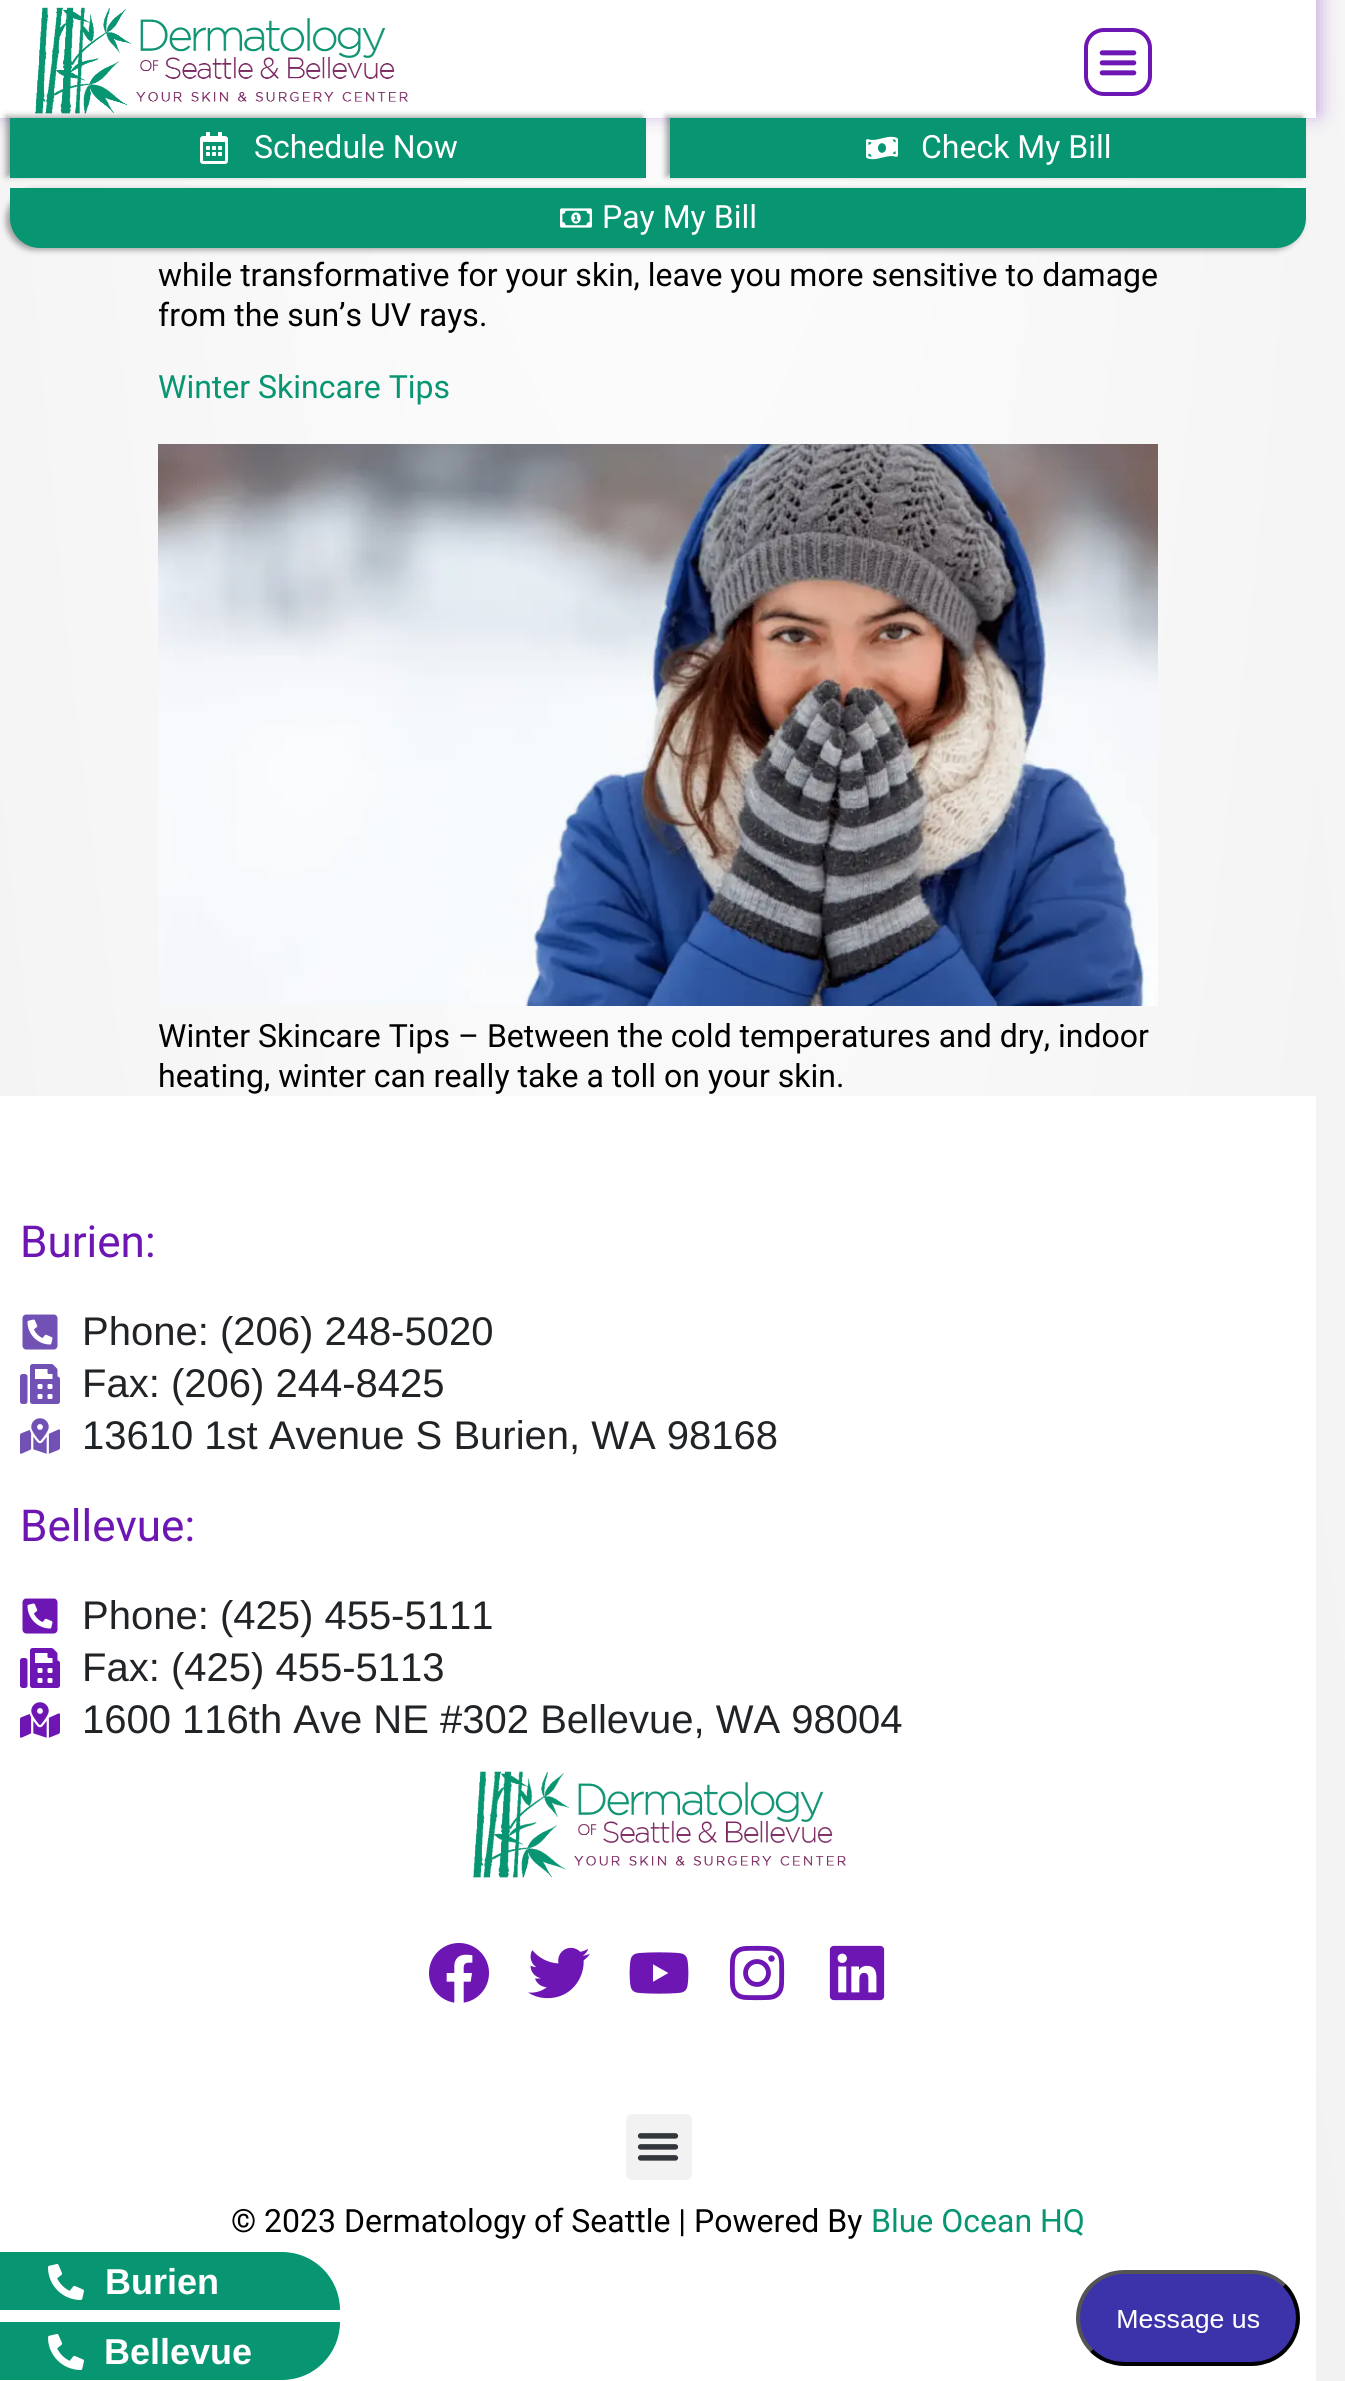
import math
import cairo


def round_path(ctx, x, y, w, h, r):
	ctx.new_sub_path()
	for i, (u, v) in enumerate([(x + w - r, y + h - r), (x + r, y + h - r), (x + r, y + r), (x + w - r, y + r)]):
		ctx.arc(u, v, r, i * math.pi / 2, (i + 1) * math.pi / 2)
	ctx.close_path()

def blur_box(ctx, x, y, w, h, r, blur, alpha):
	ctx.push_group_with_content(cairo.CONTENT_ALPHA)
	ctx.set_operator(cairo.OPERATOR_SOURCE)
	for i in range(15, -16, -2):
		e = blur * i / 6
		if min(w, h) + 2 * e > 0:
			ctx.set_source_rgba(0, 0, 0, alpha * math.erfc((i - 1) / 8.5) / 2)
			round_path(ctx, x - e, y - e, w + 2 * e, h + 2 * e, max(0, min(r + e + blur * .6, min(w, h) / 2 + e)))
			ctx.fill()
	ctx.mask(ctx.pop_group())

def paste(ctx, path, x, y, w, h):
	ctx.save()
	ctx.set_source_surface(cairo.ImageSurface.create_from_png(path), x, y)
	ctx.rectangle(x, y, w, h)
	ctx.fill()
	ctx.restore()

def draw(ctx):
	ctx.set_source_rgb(1, 1, 1)
	ctx.paint()
	gradient = cairo.RadialGradient(0, 0, 0, 0, 0, 1)
	gradient.set_matrix(cairo.Matrix(1 / 931, 0, 0, 1 / 5175, -1 * 658 / 931, -1 * -1277 / 5175))
	gradient.add_color_stop_rgba(0, 1, 1, 1, 1)
	gradient.add_color_stop_rgba(1, 0.949, 0.949, 0.949, 1)
	ctx.set_source(gradient)
	ctx.rectangle(0, 118, 1316, 978)
	ctx.fill()
	gradient = cairo.RadialGradient(0, 0, 0, 0, 0, 1)
	gradient.set_matrix(cairo.Matrix(1 / 931, 0, 0, 1 / 5175, -1 * 1974 / 931, -1 * -1277 / 5175))
	gradient.add_color_stop_rgba(0, 1, 1, 1, 1)
	gradient.add_color_stop_rgba(1, 0.949, 0.949, 0.949, 1)
	ctx.set_source(gradient)
	ctx.rectangle(1316, 0, 29, 2381)
	ctx.fill()
	ctx.set_source_rgb(0.757, 0.62, 0.878)
	blur_box(ctx, -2, -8, 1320, 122, 0, 10, 1)
	ctx.set_source_rgb(1, 1, 1)
	ctx.rectangle(0, 0, 1316, 118)
	ctx.fill()
	paste(ctx, 'media/1.png', 35, 7, 373, 107)
	round_path(ctx, 1086, 30, 64, 64, 18)
	ctx.set_source_rgb(0.427, 0.086, 0.706)
	ctx.set_line_width(4)
	ctx.stroke()
	paste(ctx, 'media/2.png', 1099, 50, 38, 26)
	ctx.set_source_rgb(0, 0, 0)
	blur_box(ctx, 6, 116, 636, 60, 0, 3, 0.35)
	ctx.set_source_rgb(0.031, 0.584, 0.447)
	ctx.rectangle(10, 118, 636, 60)
	ctx.fill()
	paste(ctx, 'media/3.png', 200, 132, 28, 32)
	ctx.select_font_face('Roboto')
	ctx.set_font_size(32)
	ctx.set_source_rgb(1, 1, 1)
	ctx.move_to(254, 158)
	ctx.show_text('Schedule Now')
	ctx.set_source_rgb(0, 0, 0)
	blur_box(ctx, 666, 116, 636, 60, 0, 3, 0.35)
	ctx.set_source_rgb(0.031, 0.584, 0.447)
	ctx.rectangle(670, 118, 636, 60)
	ctx.fill()
	paste(ctx, 'media/4.png', 866, 136, 32, 24)
	ctx.set_source_rgb(1, 1, 1)
	ctx.move_to(921, 158)
	ctx.show_text('Check My Bill')
	ctx.set_source_rgb(0, 0, 0)
	blur_box(ctx, 6, 190, 1296, 60, 30, 3, 0.35)
	ctx.set_source_rgb(0.031, 0.584, 0.447)
	ctx.new_path()
	ctx.move_to(10, 188)
	ctx.line_to(1306, 188)
	ctx.line_to(1306, 218)
	ctx.curve_to(1306, 234.5, 1292.5, 248, 1276, 248)
	ctx.line_to(40, 248)
	ctx.curve_to(23.5, 248, 10, 234.5, 10, 218)
	ctx.close_path()
	ctx.fill()
	paste(ctx, 'media/5.png', 560, 208, 32, 20)
	ctx.set_source_rgb(1, 1, 1)
	ctx.move_to(602, 228)
	ctx.show_text('Pay My Bill')
	ctx.set_source_rgb(0, 0, 0)
	ctx.move_to(158, 286)
	ctx.show_text('while transformative for your skin, leave you more sensitive to damage')
	ctx.move_to(158, 326)
	ctx.show_text('from the sun’s UV rays.')
	ctx.set_source_rgb(0.031, 0.584, 0.447)
	ctx.move_to(158, 398)
	ctx.show_text('Winter Skincare Tips')
	paste(ctx, 'media/6.png', 158, 444, 1000, 562)
	ctx.set_source_rgb(0, 0, 0)
	ctx.move_to(158, 1047)
	ctx.show_text('Winter Skincare Tips – Between the cold temperatures and dry, indoor')
	ctx.move_to(158, 1087)
	ctx.show_text('heating, winter can really take a toll on your skin.')
	ctx.set_font_size(44)
	ctx.set_source_rgb(0.427, 0.086, 0.706)
	ctx.move_to(20, 1257)
	ctx.show_text('Burien:')
	paste(ctx, 'media/7.png', 22, 1314, 36, 36)
	ctx.select_font_face('Liberation Sans')
	ctx.set_font_size(40)
	ctx.set_source_rgb(0.129, 0.141, 0.153)
	ctx.move_to(82, 1345)
	ctx.show_text('Phone: (206) 248-5020')
	paste(ctx, 'media/8.png', 20, 1364, 40, 40)
	ctx.move_to(82, 1397)
	ctx.show_text('Fax: (206) 244-8425')
	paste(ctx, 'media/9.png', 20, 1418, 40, 36)
	ctx.move_to(82, 1449)
	ctx.show_text('13610 1st Avenue S Burien, WA 98168')
	ctx.select_font_face('Roboto')
	ctx.set_font_size(44)
	ctx.set_source_rgb(0.427, 0.086, 0.706)
	ctx.move_to(20, 1541)
	ctx.show_text('Bellevue:')
	paste(ctx, 'media/10.png', 22, 1598, 36, 36)
	ctx.select_font_face('Liberation Sans')
	ctx.set_font_size(40)
	ctx.set_source_rgb(0.129, 0.141, 0.153)
	ctx.move_to(82, 1629)
	ctx.show_text('Phone: (425) 455-5111')
	paste(ctx, 'media/11.png', 20, 1648, 40, 40)
	ctx.move_to(82, 1681)
	ctx.show_text('Fax: (425) 455-5113')
	paste(ctx, 'media/12.png', 20, 1702, 40, 36)
	ctx.move_to(82, 1733)
	ctx.show_text('1600 116th Ave NE #302 Bellevue, WA 98004')
	paste(ctx, 'media/13.png', 473, 1771, 373, 107)
	paste(ctx, 'media/14.png', 429, 1943, 60, 60)
	paste(ctx, 'media/15.png', 528, 1947, 62, 52)
	paste(ctx, 'media/16.png', 629, 1952, 60, 42)
	paste(ctx, 'media/17.png', 729, 1945, 56, 56)
	paste(ctx, 'media/18.png', 829, 1945, 56, 56)
	ctx.set_source_rgb(0.949, 0.949, 0.949)
	round_path(ctx, 626, 2114, 66, 66, 6)
	ctx.fill()
	paste(ctx, 'media/19.png', 637, 2133, 42, 28)
	ctx.select_font_face('Roboto')
	ctx.set_font_size(32)
	ctx.set_source_rgb(0, 0, 0)
	ctx.move_to(231, 2232)
	ctx.show_text('© 2023 Dermatology of Seattle | Powered By')
	ctx.set_source_rgb(0.031, 0.584, 0.447)
	ctx.move_to(871, 2232)
	ctx.show_text('Blue Ocean HQ')
	ctx.new_path()
	ctx.move_to(0, 2252)
	ctx.line_to(282, 2252)
	ctx.curve_to(314, 2252, 340, 2278, 340, 2310)
	ctx.line_to(0, 2310)
	ctx.close_path()
	ctx.fill()
	paste(ctx, 'media/20.png', 48, 2264, 36, 36)
	ctx.select_font_face('Liberation Sans', cairo.FONT_SLANT_NORMAL, cairo.FONT_WEIGHT_BOLD)
	ctx.set_font_size(36)
	ctx.set_source_rgb(1, 1, 1)
	ctx.move_to(105, 2294)
	ctx.show_text('Burien')
	ctx.set_source_rgb(0.031, 0.584, 0.447)
	ctx.new_path()
	ctx.move_to(0, 2322)
	ctx.line_to(340, 2322)
	ctx.curve_to(340, 2354, 314, 2380, 282, 2380)
	ctx.line_to(0, 2380)
	ctx.close_path()
	ctx.fill()
	paste(ctx, 'media/20.png', 48, 2334, 36, 36)
	ctx.set_source_rgb(1, 1, 1)
	ctx.move_to(104, 2364)
	ctx.show_text('Bellevue')
	paste(ctx, 'media/21.png', 1076, 2270, 224, 96)


surface = cairo.ImageSurface(cairo.FORMAT_RGB24, 1345, 2381)
ctx = cairo.Context(surface)
options = cairo.FontOptions()
options.set_hint_metrics(cairo.HINT_METRICS_OFF)
options.set_hint_style(cairo.HINT_STYLE_NONE)
ctx.set_font_options(options)
ctx.set_miter_limit(4)
draw(ctx)
surface.write_to_png('image.png')
